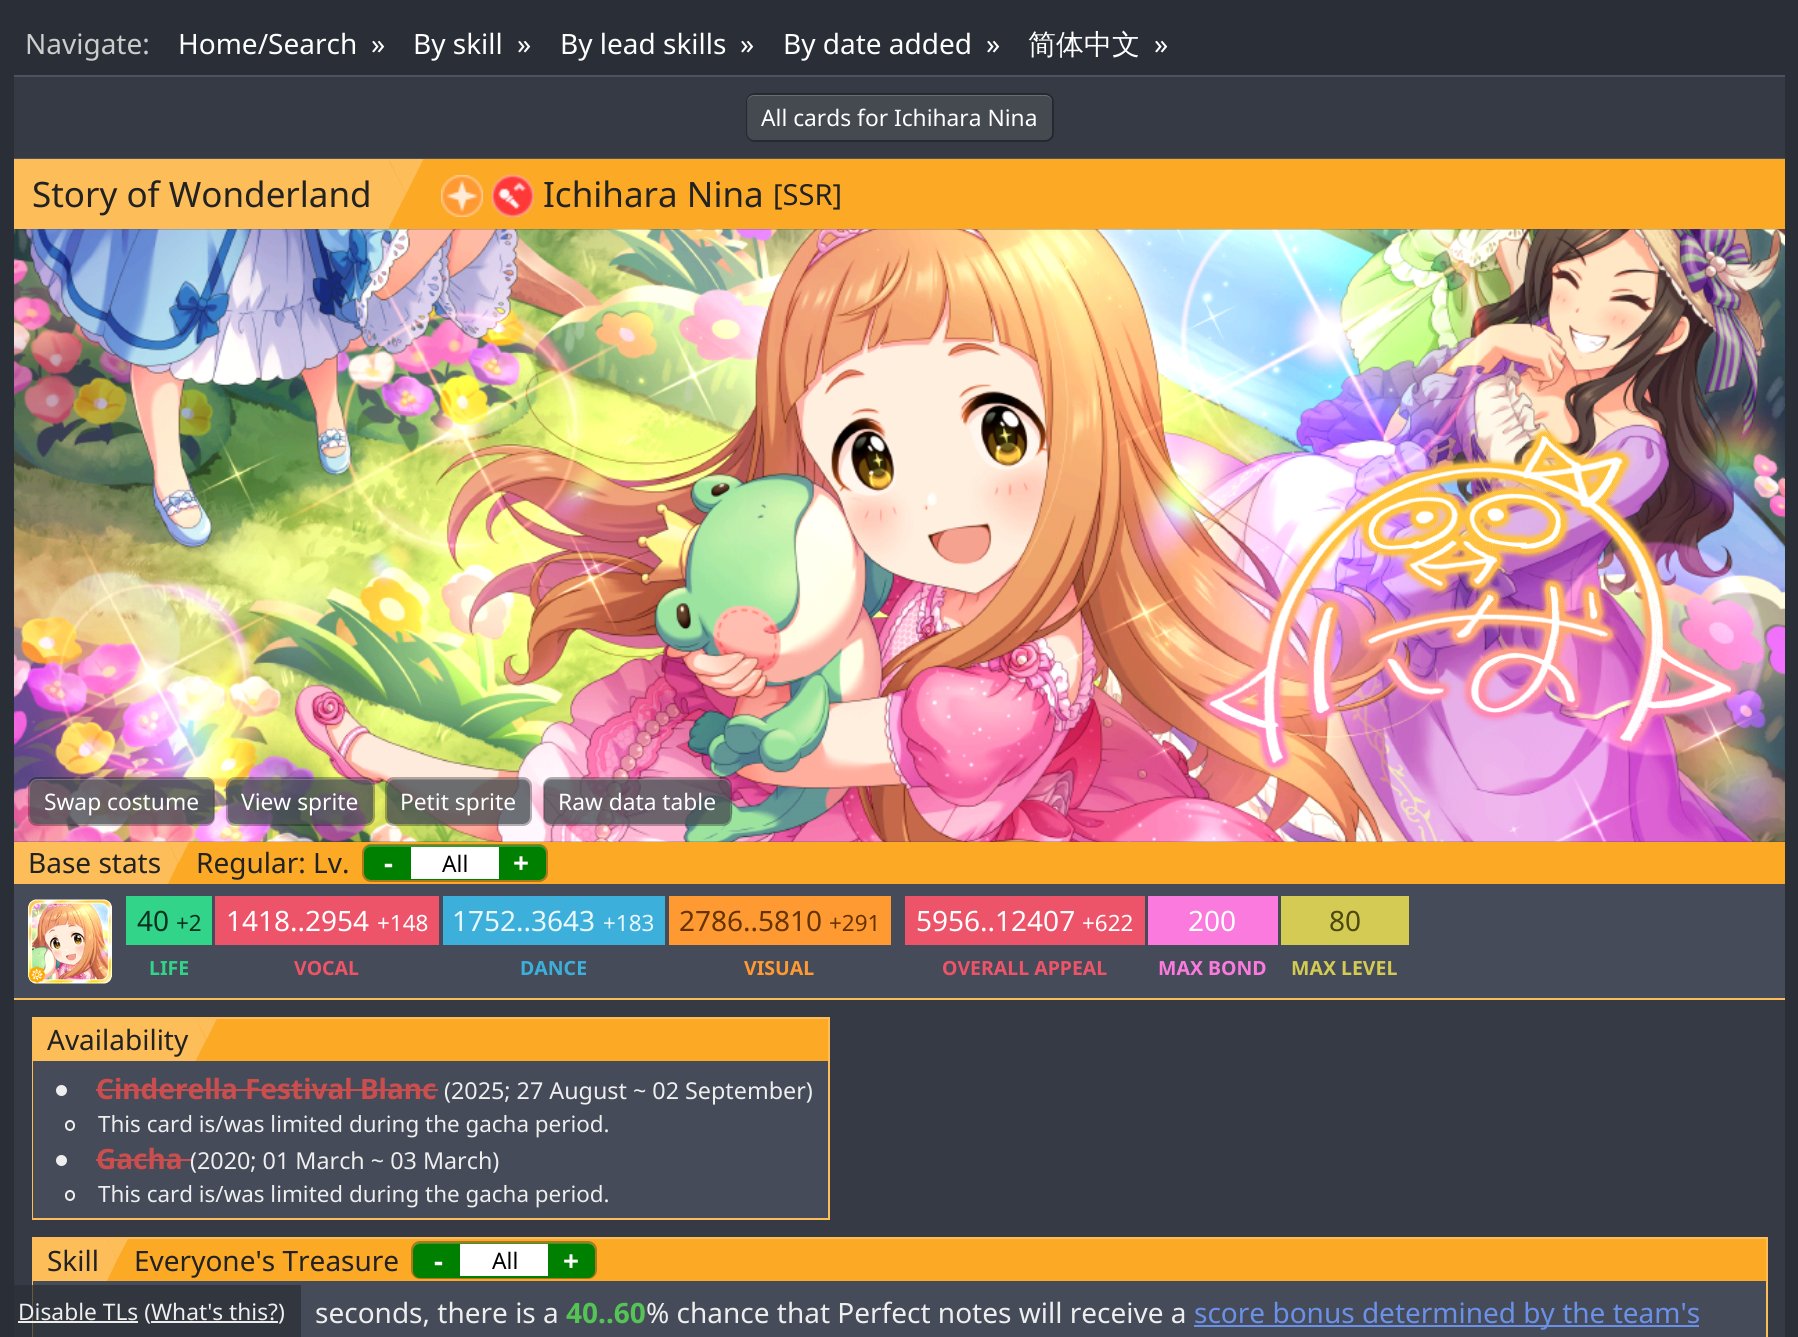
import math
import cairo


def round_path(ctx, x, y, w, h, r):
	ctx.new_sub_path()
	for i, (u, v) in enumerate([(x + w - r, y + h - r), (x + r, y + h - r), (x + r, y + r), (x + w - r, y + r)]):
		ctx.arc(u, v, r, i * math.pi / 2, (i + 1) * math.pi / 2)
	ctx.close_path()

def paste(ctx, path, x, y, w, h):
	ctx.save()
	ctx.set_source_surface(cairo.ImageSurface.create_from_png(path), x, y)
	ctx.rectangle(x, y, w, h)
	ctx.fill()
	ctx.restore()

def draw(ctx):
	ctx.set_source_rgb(0.165, 0.18, 0.212)
	ctx.paint()
	ctx.select_font_face('Noto Sans')
	ctx.set_font_size(28)
	ctx.set_source_rgb(0.8, 0.8, 0.8)
	ctx.move_to(25, 54)
	ctx.show_text('Navigate:')
	ctx.set_source_rgb(1, 1, 1)
	for x, y, s in [
		(178, 54, 'Home/Search'),
		(371, 54, '»'),
		(413, 54, 'By skill'),
		(517, 54, '»'),
		(560, 54, 'By lead skills'),
		(740, 54, '»'),
		(783, 54, 'By date added'),
		(986, 54, '»'),
	]:
		ctx.move_to(x, y)
		ctx.show_text(s)
	ctx.select_font_face('WenQuanYi Zen Hei Medium')
	ctx.move_to(1028, 54)
	ctx.show_text('简体中文')
	ctx.select_font_face('Noto Sans')
	ctx.move_to(1154, 54)
	ctx.show_text('»')
	ctx.set_source_rgb(0.294, 0.325, 0.38)
	ctx.rectangle(14, 75, 1771, 2)
	ctx.rectangle(14, 158, 1771, 1)
	ctx.fill()
	ctx.set_source_rgb(0.208, 0.227, 0.267)
	ctx.rectangle(14, 77, 1771, 81)
	ctx.fill()
	round_path(ctx, 747, 94, 306, 47, 8)
	ctx.set_source_rgb(0.145, 0.161, 0.188)
	ctx.stroke()
	ctx.set_source_rgba(0.282, 0.306, 0.325, 0.8)
	round_path(ctx, 747, 95, 305, 45, 7)
	ctx.fill()
	ctx.set_source_rgba(1, 1, 1, 0.2)
	ctx.new_path()
	ctx.move_to(754, 96)
	ctx.line_to(1045, 96)
	ctx.curve_to(1049, 96, 1052, 99, 1052, 103)
	ctx.line_to(1052, 102)
	ctx.curve_to(1052, 98, 1049, 95, 1045, 95)
	ctx.line_to(754, 95)
	ctx.curve_to(750, 95, 747, 98, 747, 102)
	ctx.line_to(747, 103)
	ctx.curve_to(747, 99, 750, 96, 754, 96)
	ctx.close_path()
	ctx.fill()
	ctx.set_font_size(22.75)
	ctx.set_source_rgb(1, 1, 1)
	ctx.move_to(761, 126)
	ctx.show_text('All cards for Ichihara Nina')
	ctx.set_source_rgb(0.208, 0.227, 0.267)
	ctx.rectangle(14, 229, 1771, 1108)
	ctx.fill()
	ctx.set_source_rgb(0.988, 0.663, 0.149)
	ctx.rectangle(389, 159, 1396, 70)
	ctx.fill()
	ctx.set_source_rgb(0.992, 0.741, 0.345)
	ctx.rectangle(14, 159, 375, 70)
	ctx.fill()
	ctx.set_font_size(35)
	ctx.set_source_rgb(0.133, 0.133, 0.133)
	ctx.move_to(32, 207)
	ctx.show_text('Story of Wonderland')
	ctx.set_source_rgb(0.992, 0.741, 0.345)
	ctx.new_path()
	ctx.move_to(388.5, 159)
	ctx.line_to(423.5, 159)
	ctx.line_to(406, 194)
	ctx.close_path()
	ctx.fill()
	ctx.new_path()
	ctx.move_to(388, 229)
	ctx.line_to(388, 159)
	ctx.line_to(406, 194)
	ctx.close_path()
	ctx.fill()
	paste(ctx, 'media/1.png', 441, 175, 42, 42)
	paste(ctx, 'media/2.png', 491, 175, 43, 42)
	ctx.set_source_rgb(0.133, 0.133, 0.133)
	ctx.move_to(543, 207)
	ctx.show_text('Ichihara Nina')
	ctx.set_font_size(29)
	ctx.move_to(773, 205)
	ctx.show_text('[SSR]')
	paste(ctx, 'media/3.png', 14, 229, 1771, 613)
	paste(ctx, 'media/4.png', 1199, 426, 542, 347)
	round_path(ctx, 29, 778, 185, 47, 8)
	ctx.set_source_rgba(0, 0, 0, 0.3)
	ctx.stroke()
	ctx.set_source_rgba(0.282, 0.306, 0.325, 0.8)
	round_path(ctx, 30, 779, 184, 45, 7)
	ctx.fill()
	ctx.set_source_rgba(1, 1, 1, 0.2)
	ctx.new_path()
	ctx.move_to(37, 780)
	ctx.line_to(206, 780)
	ctx.curve_to(210, 780, 214, 784, 214, 788)
	ctx.line_to(214, 786)
	ctx.curve_to(214, 782, 211, 779, 207, 779)
	ctx.line_to(37, 779)
	ctx.curve_to(33, 779, 30, 782, 30, 786)
	ctx.line_to(30, 788)
	ctx.curve_to(30, 784, 33, 780, 37, 780)
	ctx.close_path()
	ctx.fill()
	ctx.set_font_size(22.75)
	ctx.set_source_rgb(1, 1, 1)
	ctx.move_to(44, 810)
	ctx.show_text('Swap costume')
	round_path(ctx, 227, 778, 147, 47, 8)
	ctx.set_source_rgba(0, 0, 0, 0.3)
	ctx.stroke()
	ctx.set_source_rgba(0.282, 0.306, 0.325, 0.8)
	round_path(ctx, 228, 779, 145, 45, 7)
	ctx.fill()
	ctx.set_source_rgba(1, 1, 1, 0.2)
	ctx.new_path()
	ctx.move_to(234, 780)
	ctx.line_to(366, 780)
	ctx.curve_to(370, 780, 373, 784, 373, 788)
	ctx.line_to(373, 786)
	ctx.curve_to(373, 782, 370, 779, 366, 779)
	ctx.line_to(235, 779)
	ctx.curve_to(231, 779, 228, 782, 228, 786)
	ctx.line_to(228, 788)
	ctx.curve_to(228, 784, 231, 780, 234, 780)
	ctx.close_path()
	ctx.fill()
	ctx.set_source_rgb(1, 1, 1)
	ctx.move_to(241, 810)
	ctx.show_text('View sprite')
	round_path(ctx, 386, 778, 145, 47, 8)
	ctx.set_source_rgba(0, 0, 0, 0.3)
	ctx.stroke()
	ctx.set_source_rgba(0.282, 0.306, 0.325, 0.8)
	round_path(ctx, 387, 779, 143, 45, 7)
	ctx.fill()
	ctx.set_source_rgba(1, 1, 1, 0.2)
	ctx.new_path()
	ctx.move_to(394, 780)
	ctx.line_to(523, 780)
	ctx.curve_to(527, 780, 530, 784, 530, 788)
	ctx.line_to(530, 786)
	ctx.curve_to(530, 782, 527, 779, 523, 779)
	ctx.line_to(394, 779)
	ctx.curve_to(390, 779, 387, 782, 387, 786)
	ctx.line_to(387, 788)
	ctx.curve_to(387, 784, 390, 780, 394, 780)
	ctx.close_path()
	ctx.fill()
	ctx.set_source_rgb(1, 1, 1)
	ctx.move_to(400, 810)
	ctx.show_text('Petit sprite')
	round_path(ctx, 544, 778, 187, 47, 8)
	ctx.set_source_rgba(0, 0, 0, 0.3)
	ctx.stroke()
	ctx.set_source_rgba(0.282, 0.306, 0.325, 0.8)
	round_path(ctx, 544, 779, 186, 45, 7)
	ctx.fill()
	ctx.set_source_rgba(1, 1, 1, 0.2)
	ctx.new_path()
	ctx.move_to(551, 780)
	ctx.line_to(723, 780)
	ctx.curve_to(727, 780, 730, 784, 730, 788)
	ctx.line_to(730, 786)
	ctx.curve_to(730, 782, 727, 779, 723, 779)
	ctx.line_to(551, 779)
	ctx.curve_to(547, 779, 544, 782, 544, 786)
	ctx.line_to(544, 788)
	ctx.curve_to(544, 784, 547, 780, 551, 780)
	ctx.close_path()
	ctx.fill()
	ctx.set_source_rgb(1, 1, 1)
	ctx.move_to(558, 810)
	ctx.show_text('Raw data table')
	ctx.set_source_rgb(0.271, 0.294, 0.345)
	ctx.rectangle(14, 884, 1771, 114)
	ctx.fill()
	ctx.set_source_rgb(0.992, 0.741, 0.345)
	ctx.rectangle(14, 998, 1771, 2)
	ctx.fill()
	ctx.set_source_rgb(0.988, 0.663, 0.149)
	ctx.rectangle(168, 842, 1617, 42)
	ctx.fill()
	ctx.set_source_rgb(0.992, 0.741, 0.345)
	ctx.rectangle(14, 842, 154, 42)
	ctx.fill()
	ctx.set_font_size(28)
	ctx.set_source_rgb(0.133, 0.133, 0.133)
	ctx.move_to(28, 873)
	ctx.show_text('Base stats')
	ctx.set_source_rgb(0.992, 0.741, 0.345)
	ctx.new_path()
	ctx.move_to(168, 842)
	ctx.line_to(189, 842)
	ctx.line_to(178.5, 863)
	ctx.close_path()
	ctx.fill()
	ctx.new_path()
	ctx.move_to(168, 884)
	ctx.line_to(168, 842)
	ctx.line_to(178, 863)
	ctx.close_path()
	ctx.fill()
	ctx.set_source_rgb(0.133, 0.133, 0.133)
	ctx.move_to(196, 873)
	ctx.show_text('Regular: Lv.')
	round_path(ctx, 363, 845, 184, 36, 8)
	ctx.set_source_rgb(0.69, 0.463, 0.106)
	ctx.stroke()
	ctx.set_source_rgb(0, 0.502, 0)
	round_path(ctx, 364, 845, 182, 35, 7)
	ctx.fill()
	ctx.set_source_rgba(1, 1, 1, 0.2)
	ctx.new_path()
	ctx.move_to(371, 847)
	ctx.line_to(539, 847)
	ctx.curve_to(543, 847, 546, 850, 546, 854)
	ctx.line_to(546, 852)
	ctx.curve_to(546, 848, 543, 845, 539, 845)
	ctx.line_to(371, 845)
	ctx.curve_to(367, 845, 364, 848, 364, 852)
	ctx.line_to(364, 854)
	ctx.curve_to(364, 850, 367, 847, 371, 847)
	ctx.close_path()
	ctx.fill()
	ctx.select_font_face('Noto Sans', cairo.FONT_SLANT_NORMAL, cairo.FONT_WEIGHT_BOLD)
	ctx.set_source_rgb(1, 1, 1)
	ctx.move_to(384, 873)
	ctx.show_text('-')
	ctx.rectangle(411, 847, 88, 32)
	ctx.fill()
	ctx.select_font_face('Noto Sans')
	ctx.set_font_size(22.75)
	ctx.set_source_rgb(0, 0, 0)
	ctx.move_to(442, 872)
	ctx.show_text('All')
	ctx.select_font_face('Noto Sans', cairo.FONT_SLANT_NORMAL, cairo.FONT_WEIGHT_BOLD)
	ctx.set_font_size(28)
	ctx.set_source_rgb(1, 1, 1)
	ctx.move_to(513, 873)
	ctx.show_text('+')
	paste(ctx, 'media/5.png', 28, 899, 84, 85)
	ctx.set_source_rgb(0.196, 0.831, 0.541)
	ctx.rectangle(126, 896, 86, 49)
	ctx.fill()
	ctx.select_font_face('Noto Sans')
	ctx.set_source_rgb(0.027, 0.2, 0.122)
	ctx.move_to(137, 931)
	ctx.show_text('40')
	ctx.set_font_size(22.4)
	ctx.move_to(176, 931)
	ctx.show_text('+2')
	ctx.set_source_rgb(0.929, 0.329, 0.412)
	ctx.rectangle(215, 896, 224, 49)
	ctx.fill()
	ctx.set_font_size(28)
	ctx.set_source_rgb(1, 1, 1)
	ctx.move_to(226, 931)
	ctx.show_text('1418..2954')
	ctx.set_font_size(22.4)
	ctx.move_to(377, 931)
	ctx.show_text('+148')
	ctx.set_source_rgb(0.239, 0.686, 0.859)
	ctx.rectangle(443, 896, 222, 49)
	ctx.fill()
	ctx.set_font_size(28)
	ctx.set_source_rgb(0.91, 0.969, 0.988)
	ctx.move_to(452, 931)
	ctx.show_text('1752..3643')
	ctx.set_font_size(22.4)
	ctx.move_to(603, 931)
	ctx.show_text('+183')
	ctx.set_source_rgb(1, 0.604, 0.2)
	ctx.rectangle(669, 896, 222, 49)
	ctx.fill()
	ctx.set_font_size(28)
	ctx.set_source_rgb(0.4, 0.2, 0)
	ctx.move_to(679, 931)
	ctx.show_text('2786..5810')
	ctx.set_font_size(22.4)
	ctx.move_to(829, 931)
	ctx.show_text('+291')
	ctx.select_font_face('Noto Sans', cairo.FONT_SLANT_NORMAL, cairo.FONT_WEIGHT_BOLD)
	ctx.set_font_size(19.5)
	ctx.set_source_rgb(0.196, 0.831, 0.541)
	ctx.move_to(149, 975)
	ctx.show_text('LIFE')
	ctx.set_source_rgb(0.929, 0.329, 0.412)
	ctx.move_to(294, 975)
	ctx.show_text('VOCAL')
	ctx.set_source_rgb(0.239, 0.686, 0.859)
	ctx.move_to(520, 975)
	ctx.show_text('DANCE')
	ctx.set_source_rgb(1, 0.604, 0.2)
	ctx.move_to(744, 975)
	ctx.show_text('VISUAL')
	ctx.set_source_rgb(0.929, 0.329, 0.412)
	ctx.rectangle(905, 896, 240, 49)
	ctx.fill()
	ctx.select_font_face('Noto Sans')
	ctx.set_font_size(28)
	ctx.set_source_rgb(1, 1, 1)
	ctx.move_to(916, 931)
	ctx.show_text('5956..12407')
	ctx.set_font_size(22.4)
	ctx.move_to(1082, 931)
	ctx.show_text('+622')
	ctx.set_source_rgb(0.98, 0.478, 0.867)
	ctx.rectangle(1148, 896, 130, 49)
	ctx.fill()
	ctx.set_font_size(28)
	ctx.set_source_rgb(1, 1, 1)
	ctx.move_to(1188, 931)
	ctx.show_text('200')
	ctx.set_source_rgb(0.827, 0.796, 0.325)
	ctx.rectangle(1281, 896, 128, 49)
	ctx.fill()
	ctx.set_source_rgb(0.298, 0.282, 0.055)
	ctx.move_to(1329, 931)
	ctx.show_text('80')
	ctx.select_font_face('Noto Sans', cairo.FONT_SLANT_NORMAL, cairo.FONT_WEIGHT_BOLD)
	ctx.set_font_size(19.5)
	ctx.set_source_rgb(0.929, 0.329, 0.412)
	ctx.move_to(942, 975)
	ctx.show_text('OVERALL APPEAL')
	ctx.set_source_rgb(0.98, 0.478, 0.867)
	ctx.move_to(1158, 975)
	ctx.show_text('MAX BOND')
	ctx.set_source_rgb(0.827, 0.796, 0.325)
	ctx.move_to(1291, 975)
	ctx.show_text('MAX LEVEL')
	ctx.rectangle(33, 1018, 796, 201)
	ctx.set_source_rgb(0.992, 0.741, 0.345)
	ctx.stroke()
	ctx.set_source_rgb(0.988, 0.663, 0.149)
	ctx.rectangle(196, 1019, 632, 42)
	ctx.fill()
	ctx.set_source_rgb(0.992, 0.741, 0.345)
	ctx.rectangle(34, 1019, 162, 42)
	ctx.fill()
	ctx.select_font_face('Noto Sans')
	ctx.set_font_size(28)
	ctx.set_source_rgb(0.133, 0.133, 0.133)
	ctx.move_to(47, 1050)
	ctx.show_text('Availability')
	ctx.set_source_rgb(0.992, 0.741, 0.345)
	ctx.new_path()
	ctx.move_to(196, 1018.5)
	ctx.line_to(217, 1018.5)
	ctx.line_to(206.5, 1039.5)
	ctx.close_path()
	ctx.fill()
	ctx.new_path()
	ctx.move_to(196, 1060)
	ctx.line_to(196, 1018)
	ctx.line_to(206, 1040)
	ctx.close_path()
	ctx.fill()
	ctx.set_source_rgb(0.271, 0.294, 0.345)
	ctx.rectangle(33, 1061, 795, 157)
	ctx.fill()
	ctx.set_source_rgb(0.933, 0.933, 0.933)
	ctx.arc(61.5, 1090.5, 5.5, 0, 2 * math.pi)
	ctx.fill()
	ctx.select_font_face('Noto Sans', cairo.FONT_SLANT_NORMAL, cairo.FONT_WEIGHT_BOLD)
	ctx.set_source_rgb(0.792, 0.306, 0.306)
	ctx.move_to(96, 1099)
	ctx.show_text('Cinderella Festival Blanc')
	ctx.rectangle(96, 1089, 342, 2)
	ctx.fill()
	ctx.select_font_face('Noto Sans')
	ctx.set_font_size(23.3)
	ctx.set_source_rgb(0.933, 0.933, 0.933)
	ctx.move_to(444, 1099)
	ctx.show_text('(2025; 27 August ~ 02 September)')
	round_path(ctx, 66, 1121, 8, 9, 4)
	ctx.stroke()
	ctx.set_font_size(22.4)
	ctx.move_to(98, 1132)
	ctx.show_text('This card is/was limited during the gacha period.')
	ctx.new_path()
	ctx.arc(61.5, 1160.5, 5.5, 0, 2 * math.pi)
	ctx.fill()
	ctx.select_font_face('Noto Sans', cairo.FONT_SLANT_NORMAL, cairo.FONT_WEIGHT_BOLD)
	ctx.set_font_size(28)
	ctx.set_source_rgb(0.792, 0.306, 0.306)
	ctx.move_to(96, 1169)
	ctx.show_text('Gacha')
	ctx.rectangle(96, 1159, 95, 2)
	ctx.fill()
	ctx.select_font_face('Noto Sans')
	ctx.set_font_size(23.3)
	ctx.set_source_rgb(0.933, 0.933, 0.933)
	ctx.move_to(190, 1169)
	ctx.show_text('(2020; 01 March ~ 03 March)')
	round_path(ctx, 66, 1191, 8, 9, 4)
	ctx.stroke()
	ctx.set_font_size(22.4)
	ctx.move_to(98, 1202)
	ctx.show_text('This card is/was limited during the gacha period.')
	ctx.rectangle(33, 1238, 1734, 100)
	ctx.set_source_rgb(0.992, 0.741, 0.345)
	ctx.stroke()
	ctx.set_source_rgb(0.988, 0.663, 0.149)
	ctx.rectangle(107, 1239, 1659, 42)
	ctx.fill()
	ctx.set_source_rgb(0.992, 0.741, 0.345)
	ctx.rectangle(34, 1239, 73, 42)
	ctx.fill()
	ctx.set_font_size(28)
	ctx.set_source_rgb(0.133, 0.133, 0.133)
	ctx.move_to(47, 1271)
	ctx.show_text('Skill')
	ctx.set_source_rgb(0.992, 0.741, 0.345)
	ctx.new_path()
	ctx.move_to(107, 1239)
	ctx.line_to(128, 1239)
	ctx.line_to(117, 1260)
	ctx.close_path()
	ctx.fill()
	ctx.new_path()
	ctx.move_to(107, 1281)
	ctx.line_to(107, 1239)
	ctx.line_to(117, 1260)
	ctx.close_path()
	ctx.fill()
	ctx.set_source_rgb(0.133, 0.133, 0.133)
	ctx.move_to(134, 1271)
	ctx.show_text('Everyone\'s Treasure')
	round_path(ctx, 412, 1242, 184, 36, 8)
	ctx.set_source_rgb(0.69, 0.463, 0.106)
	ctx.stroke()
	ctx.set_source_rgb(0, 0.502, 0)
	round_path(ctx, 413, 1243, 182, 35, 7)
	ctx.fill()
	ctx.set_source_rgba(1, 1, 1, 0.2)
	ctx.new_path()
	ctx.move_to(420, 1244)
	ctx.line_to(588, 1244)
	ctx.curve_to(592, 1244, 595, 1247, 595, 1251)
	ctx.line_to(595, 1250)
	ctx.curve_to(595, 1246, 592, 1243, 588, 1243)
	ctx.line_to(420, 1243)
	ctx.curve_to(416, 1243, 413, 1246, 413, 1250)
	ctx.line_to(413, 1251)
	ctx.curve_to(413, 1247, 416, 1244, 420, 1244)
	ctx.close_path()
	ctx.fill()
	ctx.select_font_face('Noto Sans', cairo.FONT_SLANT_NORMAL, cairo.FONT_WEIGHT_BOLD)
	ctx.set_source_rgb(1, 1, 1)
	ctx.move_to(434, 1271)
	ctx.show_text('-')
	ctx.rectangle(460, 1244, 88, 32)
	ctx.fill()
	ctx.select_font_face('Noto Sans')
	ctx.set_font_size(22.75)
	ctx.set_source_rgb(0, 0, 0)
	ctx.move_to(492, 1269)
	ctx.show_text('All')
	ctx.select_font_face('Noto Sans', cairo.FONT_SLANT_NORMAL, cairo.FONT_WEIGHT_BOLD)
	ctx.set_font_size(28)
	ctx.set_source_rgb(1, 1, 1)
	ctx.move_to(563, 1271)
	ctx.show_text('+')
	ctx.set_source_rgb(0.271, 0.294, 0.345)
	ctx.rectangle(33, 1281, 1733, 56)
	ctx.fill()
	ctx.select_font_face('Noto Sans')
	ctx.set_source_rgb(0.933, 0.933, 0.933)
	ctx.move_to(315, 1323)
	ctx.show_text('seconds, there is a')
	ctx.select_font_face('Noto Sans', cairo.FONT_SLANT_NORMAL, cairo.FONT_WEIGHT_BOLD)
	ctx.set_source_rgb(0.329, 0.769, 0.329)
	ctx.move_to(566, 1323)
	ctx.show_text('40..60')
	ctx.select_font_face('Noto Sans')
	ctx.set_source_rgb(0.933, 0.933, 0.933)
	ctx.move_to(646, 1323)
	ctx.show_text('% chance that Perfect notes will receive a')
	ctx.set_source_rgb(0.416, 0.569, 0.906)
	ctx.rectangle(1194, 1325, 505, 2)
	ctx.fill()
	ctx.move_to(1194, 1323)
	ctx.show_text('score bonus determined by the team\'s')
	ctx.set_source_rgba(0.165, 0.18, 0.212, 0.7)
	ctx.rectangle(14, 1285, 287, 52)
	ctx.fill()
	ctx.set_source_rgb(0.933, 0.933, 0.933)
	ctx.rectangle(18, 1321, 120, 2)
	ctx.fill()
	ctx.set_font_size(22.75)
	ctx.move_to(18, 1320)
	ctx.show_text('Disable TLs (What\'s this?)')
	ctx.rectangle(151, 1321, 127, 2)
	ctx.fill()


surface = cairo.ImageSurface(cairo.FORMAT_RGB24, 1798, 1337)
ctx = cairo.Context(surface)
options = cairo.FontOptions()
options.set_hint_metrics(cairo.HINT_METRICS_OFF)
options.set_hint_style(cairo.HINT_STYLE_NONE)
ctx.set_font_options(options)
ctx.set_miter_limit(4)
draw(ctx)
surface.write_to_png('image.png')
